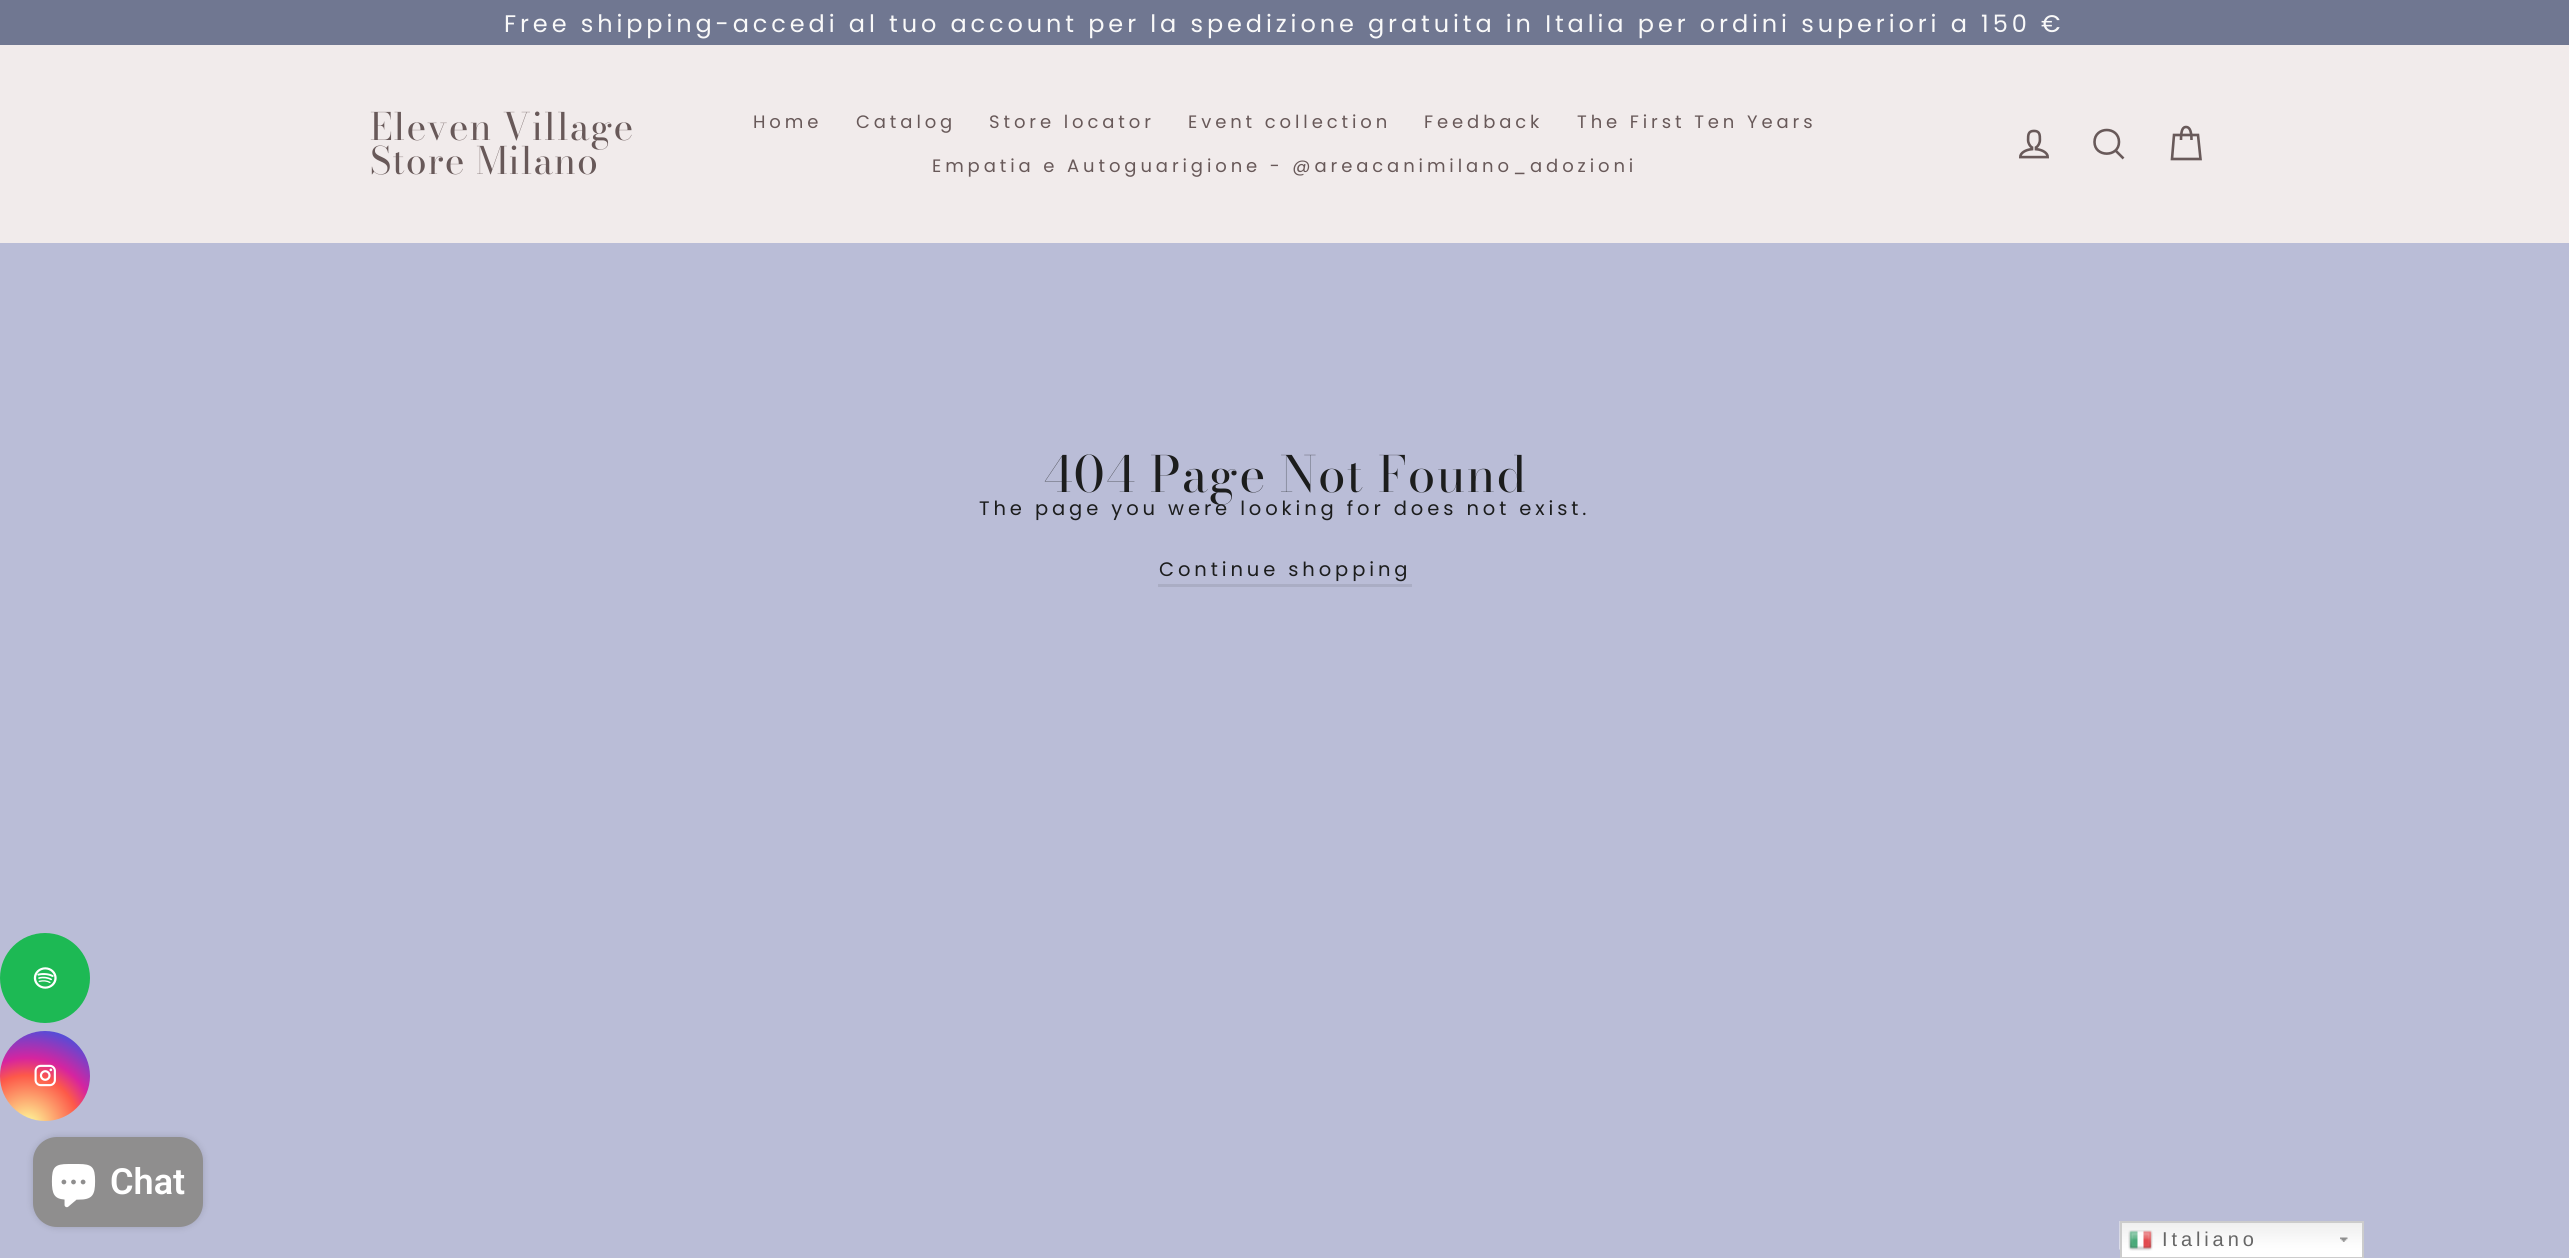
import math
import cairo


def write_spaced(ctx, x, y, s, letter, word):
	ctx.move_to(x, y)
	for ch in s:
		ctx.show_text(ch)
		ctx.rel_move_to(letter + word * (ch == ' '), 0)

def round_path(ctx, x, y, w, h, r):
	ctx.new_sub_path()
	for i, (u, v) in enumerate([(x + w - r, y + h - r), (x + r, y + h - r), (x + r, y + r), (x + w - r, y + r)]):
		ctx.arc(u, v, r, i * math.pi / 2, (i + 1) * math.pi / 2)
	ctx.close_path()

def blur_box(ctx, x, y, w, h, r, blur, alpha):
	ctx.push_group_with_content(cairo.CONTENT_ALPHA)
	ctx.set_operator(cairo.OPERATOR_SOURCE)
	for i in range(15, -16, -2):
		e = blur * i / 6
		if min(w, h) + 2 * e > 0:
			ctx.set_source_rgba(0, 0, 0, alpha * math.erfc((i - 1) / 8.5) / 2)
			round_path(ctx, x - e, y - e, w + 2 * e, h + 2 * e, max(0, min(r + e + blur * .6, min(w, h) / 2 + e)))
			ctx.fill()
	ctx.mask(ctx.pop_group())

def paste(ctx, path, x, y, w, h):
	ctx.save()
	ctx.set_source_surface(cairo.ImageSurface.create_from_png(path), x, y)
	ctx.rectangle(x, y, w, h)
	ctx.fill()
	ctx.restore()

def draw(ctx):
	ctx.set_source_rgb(0.729, 0.741, 0.843)
	ctx.paint()
	ctx.set_source_rgb(0.439, 0.467, 0.569)
	ctx.rectangle(0, 0, 2569, 45)
	ctx.fill()
	ctx.select_font_face('Poppins')
	ctx.set_font_size(24)
	ctx.set_source_rgb(0.976, 0.976, 0.976)
	write_spaced(ctx, 504, 32, 'Free shipping-accedi al tuo account per la spedizione gratuita in Italia per ordini superiori a 150 €', 3.9, 0)
	ctx.set_source_rgb(0.945, 0.918, 0.918)
	ctx.rectangle(0, 45, 2569, 198)
	ctx.fill()
	ctx.select_font_face('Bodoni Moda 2')
	ctx.set_font_size(37.5)
	ctx.set_source_rgb(0.408, 0.349, 0.349)
	write_spaced(ctx, 370, 140, 'Eleven Village', 1, 0)
	write_spaced(ctx, 370, 174, 'Store Milano', 1, 0)
	ctx.select_font_face('Poppins')
	ctx.set_font_size(18)
	for x, y, s in [
		(753, 128, 'Home'),
		(856, 128, 'Catalog'),
		(989, 128, 'Store locator'),
		(1188, 128, 'Event collection'),
		(1424, 128, 'Feedback'),
		(1577, 128, 'The First Ten Years'),
		(932, 172, 'Empatia e Autoguarigione - @areacanimilano_adozioni'),
	]:
		write_spaced(ctx, x, y, s, 3.9, 0)
	paste(ctx, 'media/1.png', 2019, 129, 30, 30)
	ctx.new_path()
	ctx.move_to(2119, 142)
	ctx.curve_to(2119, 157.5, 2094.5, 157.5, 2094.5, 142)
	ctx.curve_to(2094.5, 126, 2119, 126, 2119, 142)
	ctx.close_path()
	ctx.move_to(2123.5, 158.5)
	ctx.line_to(2115.5, 150.5)
	ctx.set_line_width(2.6)
	ctx.stroke()
	ctx.new_path()
	ctx.move_to(2181, 140)
	ctx.curve_to(2181, 129.5, 2183, 127, 2186, 127)
	ctx.curve_to(2189, 127, 2191.5, 129.5, 2191.5, 140)
	ctx.move_to(2174, 135)
	ctx.line_to(2198, 135)
	ctx.line_to(2200.5, 159)
	ctx.line_to(2172, 159)
	ctx.close_path()
	ctx.stroke()
	ctx.select_font_face('Bodoni Moda')
	ctx.set_font_size(49.5)
	ctx.set_source_rgb(0.11, 0.114, 0.114)
	write_spaced(ctx, 1043, 492, '404 Page Not Found', 1.25, 0)
	ctx.select_font_face('Poppins')
	ctx.set_font_size(19.5)
	write_spaced(ctx, 979, 515, 'The page you were looking for does not exist.', 3.9, 0)
	write_spaced(ctx, 1159, 576, 'Continue shopping', 3.9, 0)
	ctx.set_source_rgb(0.667, 0.678, 0.769)
	ctx.rectangle(1158, 584, 254, 3)
	ctx.fill()
	ctx.set_source_rgb(0.114, 0.725, 0.329)
	ctx.arc(45, 978, 45, 0, 2 * math.pi)
	ctx.fill()
	paste(ctx, 'media/2.png', 33, 967, 24, 22)
	gradient = cairo.RadialGradient(27, 1127, 0, 27, 1127, 115)
	gradient.add_color_stop_rgba(0, 0.992, 0.957, 0.592, 1)
	gradient.add_color_stop_rgba(0.05, 0.992, 0.957, 0.592, 1)
	gradient.add_color_stop_rgba(0.45, 0.992, 0.349, 0.286, 1)
	gradient.add_color_stop_rgba(0.6, 0.839, 0.141, 0.624, 1)
	gradient.add_color_stop_rgba(0.95, 0.157, 0.353, 0.922, 1)
	ctx.set_source(gradient)
	ctx.arc(45, 1076, 45, 0, 2 * math.pi)
	ctx.fill()
	paste(ctx, 'media/3.png', 34, 1064, 22, 23)
	ctx.set_source_rgb(0, 0, 0)
	blur_box(ctx, 33, 1137, 170, 90, 24, 4, 0.15)
	ctx.set_source_rgb(0.561, 0.557, 0.557)
	round_path(ctx, 33, 1137, 170, 90, 24)
	ctx.fill()
	paste(ctx, 'media/4.png', 51, 1164, 45, 44)
	ctx.select_font_face('Roboto SemiBold')
	ctx.set_font_size(36)
	ctx.set_source_rgb(1, 1, 1)
	ctx.move_to(110, 1194)
	ctx.show_text('Chat')
	ctx.rectangle(2122, 1249, 240, 8)
	ctx.fill()
	paste(ctx, 'media/5.png', 2119, 1221, 243, 29)
	paste(ctx, 'media/6.png', 2340, 1237, 8, 5)
	ctx.rectangle(2121, 1222, 242, 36)
	ctx.set_source_rgb(0.8, 0.8, 0.8)
	ctx.set_line_width(2)
	ctx.stroke()
	paste(ctx, 'media/7.png', 2128, 1230, 25, 21)
	ctx.select_font_face('Liberation Sans')
	ctx.set_font_size(20)
	ctx.set_source_rgb(0.4, 0.4, 0.4)
	write_spaced(ctx, 2162, 1246, 'Italiano', 3.9, 0)


surface = cairo.ImageSurface(cairo.FORMAT_RGB24, 2569, 1258)
ctx = cairo.Context(surface)
options = cairo.FontOptions()
options.set_hint_metrics(cairo.HINT_METRICS_OFF)
options.set_hint_style(cairo.HINT_STYLE_NONE)
ctx.set_font_options(options)
ctx.set_miter_limit(4)
draw(ctx)
surface.write_to_png('image.png')
